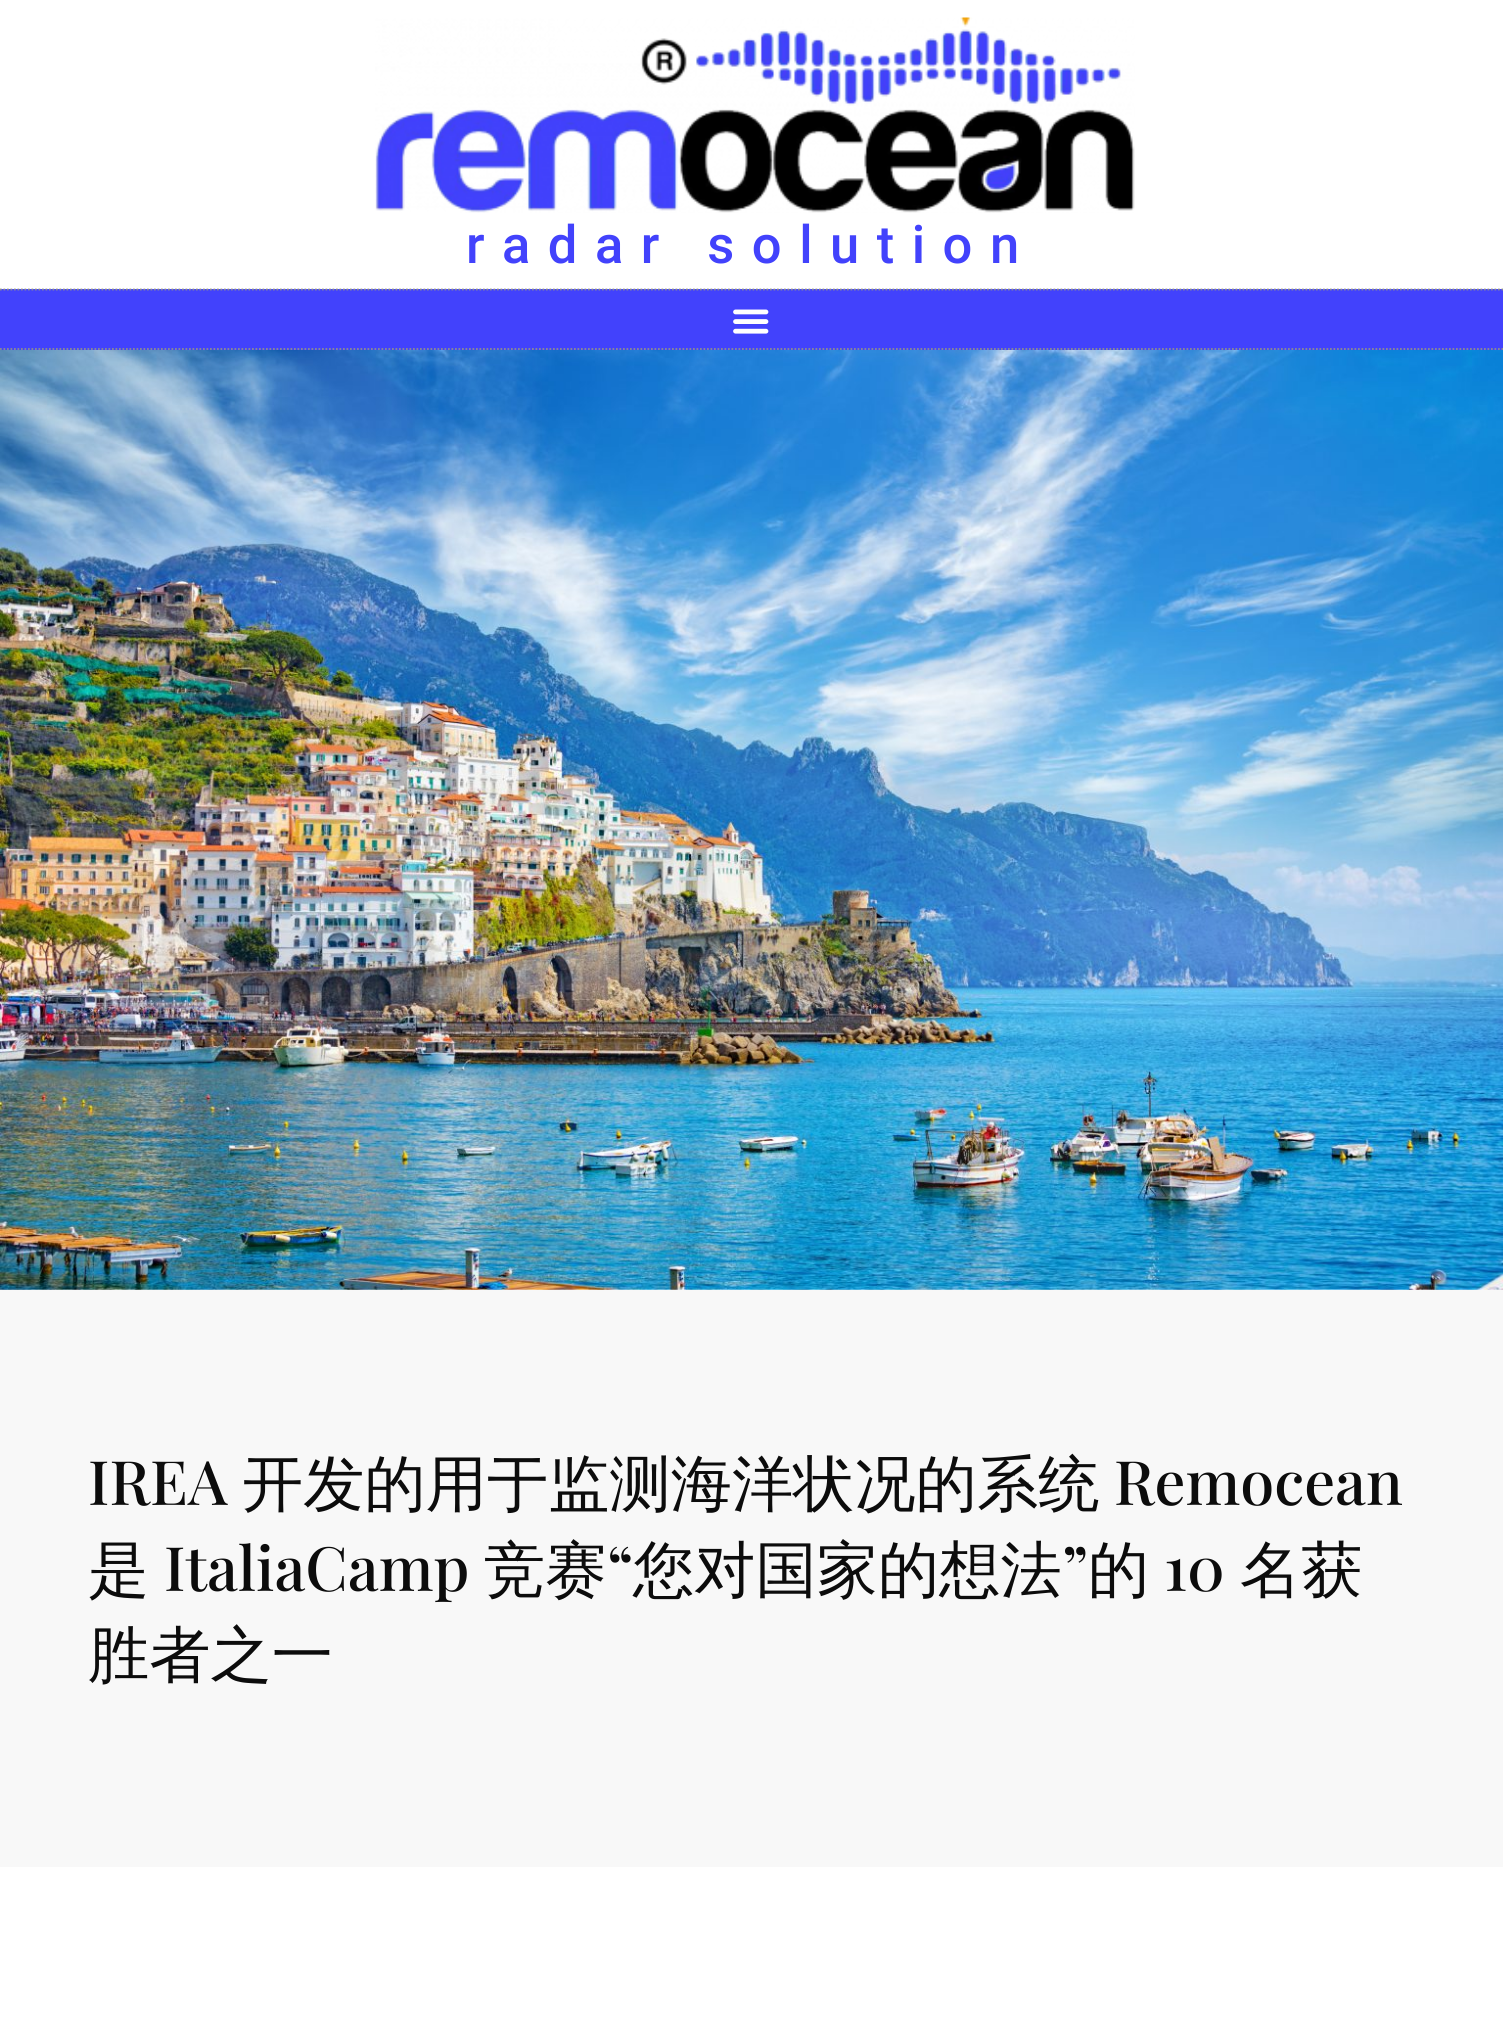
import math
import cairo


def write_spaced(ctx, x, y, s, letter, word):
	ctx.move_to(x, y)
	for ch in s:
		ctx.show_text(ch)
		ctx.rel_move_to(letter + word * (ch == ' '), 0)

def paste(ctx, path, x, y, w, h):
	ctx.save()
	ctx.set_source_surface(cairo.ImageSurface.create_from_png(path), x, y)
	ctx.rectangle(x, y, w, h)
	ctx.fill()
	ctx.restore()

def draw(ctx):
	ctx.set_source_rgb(1, 1, 1)
	ctx.paint()
	paste(ctx, 'media/1.png', 375, 17, 760, 196)
	ctx.select_font_face('Roboto Medium')
	ctx.set_font_size(52.5)
	ctx.set_source_rgb(0.259, 0.259, 0.988)
	write_spaced(ctx, 466, 263, 'radar solution', 17.5, 0)
	ctx.rectangle(0, 289, 1503, 61)
	ctx.fill()
	ctx.new_path()
	ctx.move_to(0, 289.5)
	ctx.line_to(1503, 289.5)
	ctx.set_source_rgb(0.557, 0.557, 0.557)
	ctx.set_line_width(1.8)
	ctx.set_dash([1.75, 1.75])
	ctx.stroke()
	ctx.new_path()
	ctx.move_to(0, 349)
	ctx.line_to(1503, 349)
	ctx.stroke()
	paste(ctx, 'media/2.png', 733, 309, 36, 25)
	paste(ctx, 'media/3.png', 0, 350, 1503, 940)
	ctx.set_source_rgb(0.969, 0.969, 0.969)
	ctx.rectangle(0, 1290, 1503, 577)
	ctx.fill()
	ctx.select_font_face('Playfair Display Medium')
	ctx.set_font_size(61.25)
	ctx.set_source_rgb(0.047, 0.047, 0.047)
	ctx.move_to(88, 1505)
	ctx.show_text('IREA')
	ctx.select_font_face('WenQuanYi Zen Hei Medium')
	ctx.move_to(242, 1505)
	ctx.show_text('开发的用于监测海洋状况的系统')
	ctx.select_font_face('Playfair Display Medium')
	ctx.move_to(1114, 1505)
	ctx.show_text('Remocean')
	ctx.select_font_face('WenQuanYi Zen Hei Medium')
	ctx.move_to(88, 1591)
	ctx.show_text('是')
	ctx.select_font_face('Playfair Display Medium')
	ctx.move_to(164, 1591)
	ctx.show_text('ItaliaCamp')
	ctx.select_font_face('WenQuanYi Zen Hei Medium')
	ctx.move_to(484, 1591)
	ctx.show_text('竞赛')
	ctx.select_font_face('Playfair Display Medium')
	ctx.move_to(607, 1591)
	ctx.show_text('“')
	ctx.select_font_face('WenQuanYi Zen Hei Medium')
	ctx.move_to(633, 1591)
	ctx.show_text('您对国家的想法')
	ctx.select_font_face('Playfair Display Medium')
	ctx.move_to(1062, 1591)
	ctx.show_text('”')
	ctx.select_font_face('WenQuanYi Zen Hei Medium')
	ctx.move_to(1088, 1591)
	ctx.show_text('的')
	ctx.move_to(1240, 1591)
	ctx.show_text('名获')
	ctx.select_font_face('Playfair Display Medium')
	ctx.move_to(1164, 1591)
	ctx.show_text('10')
	ctx.select_font_face('WenQuanYi Zen Hei Medium')
	ctx.move_to(88, 1676)
	ctx.show_text('胜者之一')


surface = cairo.ImageSurface(cairo.FORMAT_RGB24, 1503, 2023)
ctx = cairo.Context(surface)
options = cairo.FontOptions()
options.set_hint_metrics(cairo.HINT_METRICS_OFF)
options.set_hint_style(cairo.HINT_STYLE_NONE)
ctx.set_font_options(options)
ctx.set_miter_limit(4)
draw(ctx)
surface.write_to_png('image.png')
